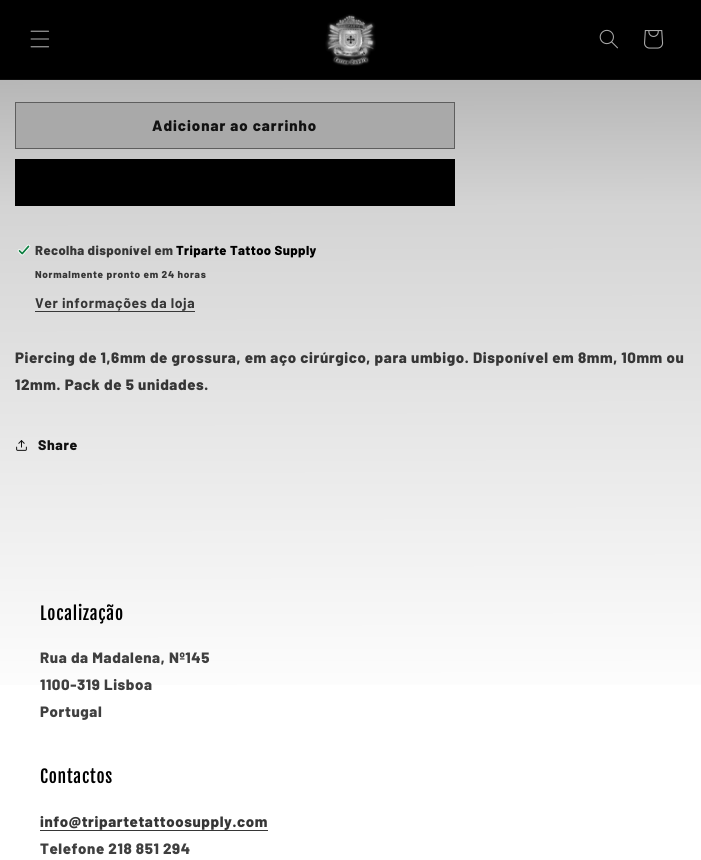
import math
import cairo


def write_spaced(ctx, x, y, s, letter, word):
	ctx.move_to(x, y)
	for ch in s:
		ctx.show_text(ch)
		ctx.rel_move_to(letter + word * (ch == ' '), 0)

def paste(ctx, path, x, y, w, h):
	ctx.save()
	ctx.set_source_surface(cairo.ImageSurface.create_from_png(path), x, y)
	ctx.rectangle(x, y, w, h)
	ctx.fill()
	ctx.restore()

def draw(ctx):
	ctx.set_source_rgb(1, 1, 1)
	ctx.paint()
	gradient = cairo.LinearGradient(350, 0, 351, 860)
	gradient.add_color_stop_rgba(0, 0.643, 0.643, 0.643, 1)
	gradient.add_color_stop_rgba(0.24, 0.831, 0.831, 0.831, 1)
	gradient.add_color_stop_rgba(0.83, 1, 1, 1, 1)
	ctx.set_source(gradient)
	ctx.rectangle(0, 80, 701, 605)
	ctx.fill()
	ctx.set_source_rgb(0, 0, 0)
	ctx.rectangle(0, 0, 701, 79)
	ctx.fill()
	ctx.set_source_rgb(0.055, 0.055, 0.055)
	ctx.rectangle(0, 79, 701, 1)
	ctx.fill()
	paste(ctx, 'media/1.png', 30, 30, 20, 18)
	paste(ctx, 'media/2.png', 325, 14, 51, 52)
	paste(ctx, 'media/3.png', 599, 29, 19, 20)
	paste(ctx, 'media/4.png', 644, 30, 20, 19)
	ctx.set_source_rgb(0.663, 0.663, 0.663)
	ctx.rectangle(16, 103, 438, 45)
	ctx.fill()
	ctx.rectangle(15.5, 102.5, 439, 46)
	ctx.set_source_rgb(0.369, 0.369, 0.369)
	ctx.set_line_width(1)
	ctx.stroke()
	ctx.select_font_face('Barlow ExtraBold')
	ctx.set_font_size(15)
	ctx.set_source_rgb(0.071, 0.071, 0.071)
	write_spaced(ctx, 152, 131, 'Adicionar ao carrinho', 1, 0)
	ctx.set_source_rgb(0, 0, 0)
	ctx.rectangle(15, 159, 440, 47)
	ctx.fill()
	paste(ctx, 'media/5.png', 17, 244, 14, 12)
	ctx.set_font_size(13)
	ctx.set_source_rgb(0.212, 0.212, 0.212)
	write_spaced(ctx, 35, 255, 'Recolha disponível em', 0.4, 0)
	ctx.set_source_rgb(0, 0, 0)
	write_spaced(ctx, 176, 255, 'Triparte Tattoo Supply', 0.4, 0)
	ctx.set_font_size(10)
	ctx.set_source_rgb(0.212, 0.212, 0.212)
	write_spaced(ctx, 35, 278, 'Normalmente pronto em 24 horas', 0.7, 0)
	ctx.select_font_face('Barlow', cairo.FONT_SLANT_NORMAL, cairo.FONT_WEIGHT_BOLD)
	ctx.set_font_size(14)
	write_spaced(ctx, 35, 308, 'Ver informações da loja', 0.6, 0)
	ctx.set_source_rgb(0.216, 0.216, 0.216)
	ctx.rectangle(35, 311, 160, 1)
	ctx.fill()
	ctx.select_font_face('Barlow ExtraBold')
	ctx.set_font_size(15)
	ctx.set_source_rgb(0.212, 0.212, 0.212)
	write_spaced(ctx, 15, 363, 'Piercing de 1,6mm de grossura, em aço cirúrgico, para umbigo. Disponível em 8mm, 10mm ou', 0.6, 0)
	write_spaced(ctx, 15, 390, '12mm. Pack de 5 unidades.', 0.6, 0)
	paste(ctx, 'media/6.png', 16, 440, 11, 11)
	ctx.set_font_size(14)
	ctx.set_source_rgb(0.071, 0.071, 0.071)
	write_spaced(ctx, 38, 450, 'Share', 0.6, 0)
	ctx.select_font_face('Fjalla One')
	ctx.set_font_size(17.5)
	ctx.set_source_rgb(0, 0, 0)
	write_spaced(ctx, 40, 620, 'Localização', 0.75, 0)
	ctx.select_font_face('Barlow ExtraBold')
	ctx.set_font_size(15)
	ctx.set_source_rgb(0.247, 0.247, 0.247)
	for x, y, s in [
		(40, 663, 'Rua da Madalena, Nº145'),
		(40, 690, '1100-319 Lisboa'),
		(40, 717, 'Portugal'),
	]:
		write_spaced(ctx, x, y, s, 0.6, 0)
	ctx.select_font_face('Fjalla One')
	ctx.set_font_size(17.5)
	ctx.set_source_rgb(0, 0, 0)
	write_spaced(ctx, 40, 783, 'Contactos', 0.75, 0)
	ctx.select_font_face('Barlow ExtraBold')
	ctx.set_font_size(15)
	ctx.set_source_rgb(0.212, 0.212, 0.212)
	write_spaced(ctx, 40, 827, 'info@tripartetattoosupply.com', 0.6, 0)
	ctx.rectangle(40, 830, 228, 1)
	ctx.fill()
	ctx.set_source_rgb(0.247, 0.247, 0.247)
	write_spaced(ctx, 40, 854, 'Telefone 218 851 294', 0.6, 0)


surface = cairo.ImageSurface(cairo.FORMAT_RGB24, 701, 860)
ctx = cairo.Context(surface)
options = cairo.FontOptions()
options.set_hint_metrics(cairo.HINT_METRICS_OFF)
options.set_hint_style(cairo.HINT_STYLE_NONE)
ctx.set_font_options(options)
ctx.set_miter_limit(4)
draw(ctx)
surface.write_to_png('image.png')
